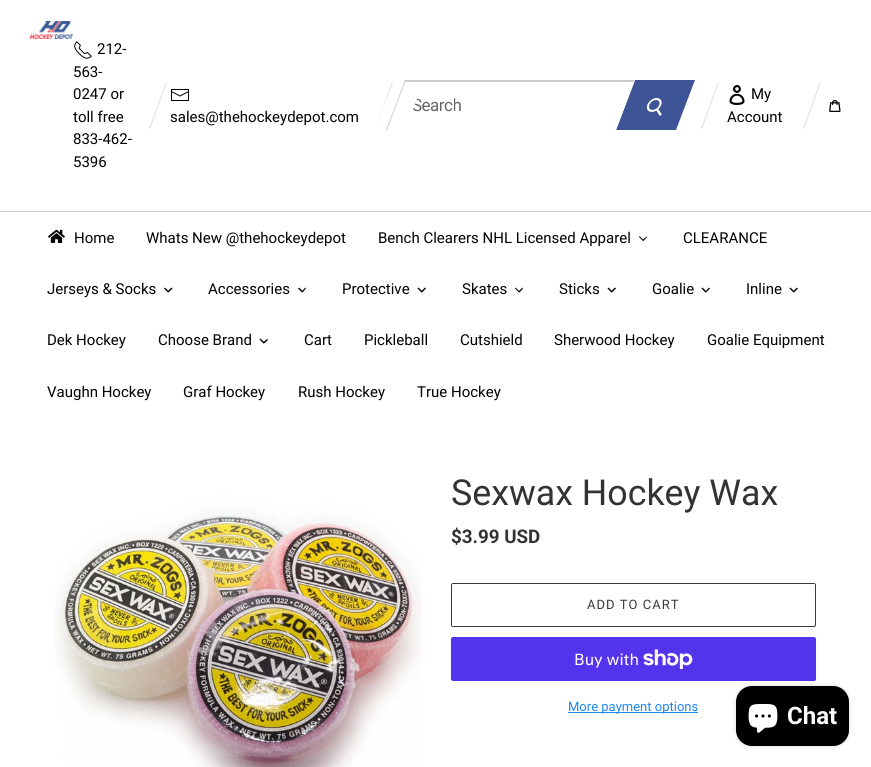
import math
import cairo


def write_spaced(ctx, x, y, s, letter, word):
	ctx.move_to(x, y)
	for ch in s:
		ctx.show_text(ch)
		ctx.rel_move_to(letter + word * (ch == ' '), 0)

def round_path(ctx, x, y, w, h, r):
	ctx.new_sub_path()
	for i, (u, v) in enumerate([(x + w - r, y + h - r), (x + r, y + h - r), (x + r, y + r), (x + w - r, y + r)]):
		ctx.arc(u, v, r, i * math.pi / 2, (i + 1) * math.pi / 2)
	ctx.close_path()

def blur_box(ctx, x, y, w, h, r, blur, alpha):
	ctx.push_group_with_content(cairo.CONTENT_ALPHA)
	ctx.set_operator(cairo.OPERATOR_SOURCE)
	for i in range(15, -16, -2):
		e = blur * i / 6
		if min(w, h) + 2 * e > 0:
			ctx.set_source_rgba(0, 0, 0, alpha * math.erfc((i - 1) / 8.5) / 2)
			round_path(ctx, x - e, y - e, w + 2 * e, h + 2 * e, max(0, min(r + e + blur * .6, min(w, h) / 2 + e)))
			ctx.fill()
	ctx.mask(ctx.pop_group())

def paste(ctx, path, x, y, w, h):
	ctx.save()
	ctx.set_source_surface(cairo.ImageSurface.create_from_png(path), x, y)
	ctx.rectangle(x, y, w, h)
	ctx.fill()
	ctx.restore()

def draw(ctx):
	ctx.set_source_rgb(1, 1, 1)
	ctx.paint()
	ctx.set_source_rgb(0.8, 0.8, 0.8)
	ctx.rectangle(0, 211, 871, 1)
	ctx.fill()
	paste(ctx, 'media/1.png', 30, 21, 43, 18)
	paste(ctx, 'media/2.png', 74, 41, 18, 18)
	ctx.select_font_face('Roboto')
	ctx.set_font_size(15)
	ctx.set_source_rgb(0, 0, 0)
	for x, y, s in [
		(97, 54, '212-'),
		(73, 77, '563-'),
		(73, 99, '0247 or'),
		(73, 122, 'toll free'),
		(73, 144, '833-462-'),
		(73, 167, '5396'),
	]:
		ctx.move_to(x, y)
		ctx.show_text(s)
	ctx.set_source_rgb(0.867, 0.867, 0.867)
	ctx.new_path()
	ctx.move_to(166, 82)
	ctx.line_to(167, 82)
	ctx.line_to(150, 129)
	ctx.line_to(149, 129)
	ctx.close_path()
	ctx.fill()
	paste(ctx, 'media/3.png', 171, 89, 18, 12)
	ctx.set_source_rgb(0, 0, 0)
	ctx.move_to(170, 122)
	ctx.show_text('sales@thehockeydepot.com')
	ctx.set_source_rgb(0.867, 0.867, 0.867)
	ctx.new_path()
	ctx.move_to(392, 82)
	ctx.line_to(393, 82)
	ctx.line_to(375, 129)
	ctx.close_path()
	ctx.fill()
	ctx.set_source_rgb(0.239, 0.329, 0.592)
	ctx.new_path()
	ctx.move_to(635, 80)
	ctx.line_to(695, 80)
	ctx.line_to(676, 130)
	ctx.line_to(616, 130)
	ctx.close_path()
	ctx.fill()
	ctx.set_source_rgb(1, 1, 1)
	ctx.new_path()
	ctx.move_to(405, 80)
	ctx.line_to(635, 80)
	ctx.line_to(616, 130)
	ctx.line_to(386, 130)
	ctx.close_path()
	ctx.fill()
	ctx.set_source_rgb(0.8, 0.8, 0.8)
	ctx.new_path()
	ctx.move_to(405, 80)
	ctx.line_to(635, 80)
	ctx.line_to(634, 82)
	ctx.line_to(404, 82)
	ctx.close_path()
	ctx.fill()
	ctx.new_path()
	ctx.move_to(405, 80)
	ctx.line_to(406, 80)
	ctx.line_to(387, 130)
	ctx.line_to(386, 130)
	ctx.close_path()
	ctx.fill()
	ctx.save()
	ctx.new_path()
	ctx.move_to(418, 96)
	ctx.line_to(584, 96)
	ctx.line_to(577, 115)
	ctx.line_to(411, 115)
	ctx.close_path()
	ctx.clip()
	ctx.set_font_size(17)
	ctx.set_source_rgb(0.4, 0.4, 0.4)
	write_spaced(ctx, 412, 111, 'Search', -0.5, 0)
	ctx.restore()
	paste(ctx, 'media/4.png', 646, 98, 16, 18)
	ctx.set_source_rgb(0.867, 0.867, 0.867)
	ctx.new_path()
	ctx.move_to(718, 82)
	ctx.line_to(719, 82)
	ctx.line_to(702, 129)
	ctx.line_to(701, 129)
	ctx.close_path()
	ctx.fill()
	paste(ctx, 'media/5.png', 729, 85, 16, 20)
	ctx.set_source_rgb(0, 0, 0)
	ctx.move_to(751, 99)
	ctx.show_text('My')
	ctx.move_to(727, 122)
	ctx.show_text('Account')
	ctx.set_source_rgb(0.867, 0.867, 0.867)
	ctx.new_path()
	ctx.move_to(820, 82)
	ctx.line_to(821, 82)
	ctx.line_to(804, 129)
	ctx.line_to(803, 129)
	ctx.close_path()
	ctx.fill()
	paste(ctx, 'media/6.png', 829, 99, 12, 13)
	paste(ctx, 'media/7.png', 48, 229, 17, 14)
	ctx.set_source_rgb(0, 0, 0)
	for x, y, s in [
		(74, 243, 'Home'),
		(146, 243, 'Whats New @thehockeydepot'),
		(378, 243, 'Bench Clearers NHL Licensed Apparel'),
	]:
		ctx.move_to(x, y)
		ctx.show_text(s)
	ctx.new_path()
	ctx.move_to(646.5, 236.5)
	ctx.line_to(647, 237)
	ctx.line_to(643.5, 241)
	ctx.line_to(642.5, 240)
	ctx.close_path()
	ctx.fill()
	ctx.new_path()
	ctx.move_to(639.5, 236)
	ctx.line_to(643.5, 240)
	ctx.line_to(643, 241)
	ctx.line_to(639, 237)
	ctx.close_path()
	ctx.fill()
	ctx.move_to(683, 243)
	ctx.show_text('CLEARANCE')
	ctx.move_to(47, 294)
	ctx.show_text('Jerseys & Socks')
	ctx.new_path()
	ctx.move_to(171.5, 287.5)
	ctx.line_to(172.5, 288.5)
	ctx.line_to(168.5, 292.5)
	ctx.line_to(167.5, 291.5)
	ctx.close_path()
	ctx.fill()
	ctx.new_path()
	ctx.move_to(165, 287.5)
	ctx.line_to(169, 291.5)
	ctx.line_to(168, 292.5)
	ctx.line_to(164, 288.5)
	ctx.close_path()
	ctx.fill()
	ctx.move_to(208, 294)
	ctx.show_text('Accessories')
	ctx.new_path()
	ctx.move_to(305.5, 287.5)
	ctx.line_to(306, 288.5)
	ctx.line_to(302.5, 292.5)
	ctx.line_to(301.5, 291.5)
	ctx.close_path()
	ctx.fill()
	ctx.new_path()
	ctx.move_to(299, 287.5)
	ctx.line_to(303, 291.5)
	ctx.line_to(302, 292.5)
	ctx.line_to(298, 288.5)
	ctx.close_path()
	ctx.fill()
	ctx.move_to(342, 294)
	ctx.show_text('Protective')
	ctx.new_path()
	ctx.move_to(425, 287.5)
	ctx.line_to(426, 288.5)
	ctx.line_to(422, 292.5)
	ctx.line_to(421, 291.5)
	ctx.close_path()
	ctx.fill()
	ctx.new_path()
	ctx.move_to(418.5, 287.5)
	ctx.line_to(422.5, 291.5)
	ctx.line_to(421.5, 292.5)
	ctx.line_to(417.5, 288.5)
	ctx.close_path()
	ctx.fill()
	ctx.move_to(462, 294)
	ctx.show_text('Skates')
	ctx.new_path()
	ctx.move_to(522.5, 287.5)
	ctx.line_to(523, 288.5)
	ctx.line_to(519.5, 292.5)
	ctx.line_to(518.5, 291.5)
	ctx.close_path()
	ctx.fill()
	ctx.new_path()
	ctx.move_to(515.5, 287.5)
	ctx.line_to(519.5, 291.5)
	ctx.line_to(519, 292.5)
	ctx.line_to(515, 288.5)
	ctx.close_path()
	ctx.fill()
	ctx.move_to(559, 294)
	ctx.show_text('Sticks')
	ctx.new_path()
	ctx.move_to(615, 287.5)
	ctx.line_to(616, 288.5)
	ctx.line_to(612, 292.5)
	ctx.line_to(611, 291.5)
	ctx.close_path()
	ctx.fill()
	ctx.new_path()
	ctx.move_to(608.5, 287.5)
	ctx.line_to(612.5, 291.5)
	ctx.line_to(611.5, 292.5)
	ctx.line_to(607.5, 288.5)
	ctx.close_path()
	ctx.fill()
	ctx.move_to(652, 294)
	ctx.show_text('Goalie')
	ctx.new_path()
	ctx.move_to(709, 287.5)
	ctx.line_to(710, 288.5)
	ctx.line_to(706, 292.5)
	ctx.line_to(705.5, 291.5)
	ctx.close_path()
	ctx.fill()
	ctx.new_path()
	ctx.move_to(702.5, 287.5)
	ctx.line_to(706.5, 291.5)
	ctx.line_to(705.5, 292.5)
	ctx.line_to(701.5, 288.5)
	ctx.close_path()
	ctx.fill()
	ctx.move_to(746, 294)
	ctx.show_text('Inline')
	ctx.new_path()
	ctx.move_to(797, 287.5)
	ctx.line_to(798, 288.5)
	ctx.line_to(794, 292.5)
	ctx.line_to(793, 291.5)
	ctx.close_path()
	ctx.fill()
	ctx.new_path()
	ctx.move_to(790.5, 287.5)
	ctx.line_to(794.5, 291.5)
	ctx.line_to(793.5, 292.5)
	ctx.line_to(789.5, 288.5)
	ctx.close_path()
	ctx.fill()
	ctx.move_to(47, 345)
	ctx.show_text('Dek Hockey')
	ctx.move_to(158, 345)
	ctx.show_text('Choose Brand')
	ctx.new_path()
	ctx.move_to(267, 339)
	ctx.line_to(268, 340)
	ctx.line_to(264, 343.5)
	ctx.line_to(263, 342.5)
	ctx.close_path()
	ctx.fill()
	ctx.new_path()
	ctx.move_to(260.5, 338.5)
	ctx.line_to(264.5, 342.5)
	ctx.line_to(263.5, 343.5)
	ctx.line_to(259.5, 339.5)
	ctx.close_path()
	ctx.fill()
	for x, y, s in [
		(304, 345, 'Cart'),
		(364, 345, 'Pickleball'),
		(460, 345, 'Cutshield'),
		(554, 345, 'Sherwood Hockey'),
		(707, 345, 'Goalie Equipment'),
		(47, 397, 'Vaughn Hockey'),
		(183, 397, 'Graf Hockey'),
		(298, 397, 'Rush Hockey'),
		(417, 397, 'True Hockey'),
	]:
		ctx.move_to(x, y)
		ctx.show_text(s)
	paste(ctx, 'media/8.png', 55, 472, 366, 295)
	ctx.set_font_size(35.75)
	ctx.set_source_rgb(0.2, 0.2, 0.2)
	ctx.move_to(451, 505)
	ctx.show_text('Sexwax Hockey Wax')
	ctx.select_font_face('Roboto', cairo.FONT_SLANT_NORMAL, cairo.FONT_WEIGHT_BOLD)
	ctx.set_font_size(18.75)
	ctx.move_to(451, 543)
	ctx.show_text('$3.99 USD')
	round_path(ctx, 451.5, 583.5, 364, 43, 1.5)
	ctx.set_source_rgb(0.227, 0.227, 0.227)
	ctx.set_line_width(1)
	ctx.stroke()
	ctx.select_font_face('Roboto')
	ctx.set_font_size(13)
	write_spaced(ctx, 587, 609, 'ADD TO CART', 1, 0)
	ctx.set_source_rgb(0.329, 0.2, 0.922)
	round_path(ctx, 451, 637, 365, 44, 2)
	ctx.fill()
	ctx.select_font_face('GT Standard')
	ctx.set_font_size(16)
	ctx.set_source_rgb(1, 1, 1)
	ctx.move_to(574, 665)
	ctx.show_text('Buy with')
	paste(ctx, 'media/9.png', 643, 649, 50, 20)
	ctx.set_source_rgb(0.118, 0.529, 0.941)
	ctx.rectangle(568, 712, 130, 1)
	ctx.fill()
	ctx.select_font_face('Roboto')
	ctx.set_font_size(13)
	ctx.move_to(568, 711)
	ctx.show_text('More payment options')
	ctx.set_source_rgb(0, 0, 0)
	blur_box(ctx, 736, 686, 113, 60, 16, 2.5, 0.15)
	ctx.set_source_rgb(0, 0, 0)
	round_path(ctx, 736, 686, 113, 60, 16)
	ctx.fill()
	paste(ctx, 'media/10.png', 748, 704, 30, 29)
	ctx.select_font_face('Roboto', cairo.FONT_SLANT_NORMAL, cairo.FONT_WEIGHT_BOLD)
	ctx.set_font_size(24)
	ctx.set_source_rgb(1, 1, 1)
	ctx.move_to(787, 724)
	ctx.show_text('Chat')


surface = cairo.ImageSurface(cairo.FORMAT_RGB24, 871, 767)
ctx = cairo.Context(surface)
options = cairo.FontOptions()
options.set_hint_metrics(cairo.HINT_METRICS_OFF)
options.set_hint_style(cairo.HINT_STYLE_NONE)
ctx.set_font_options(options)
ctx.set_miter_limit(4)
draw(ctx)
surface.write_to_png('image.png')
